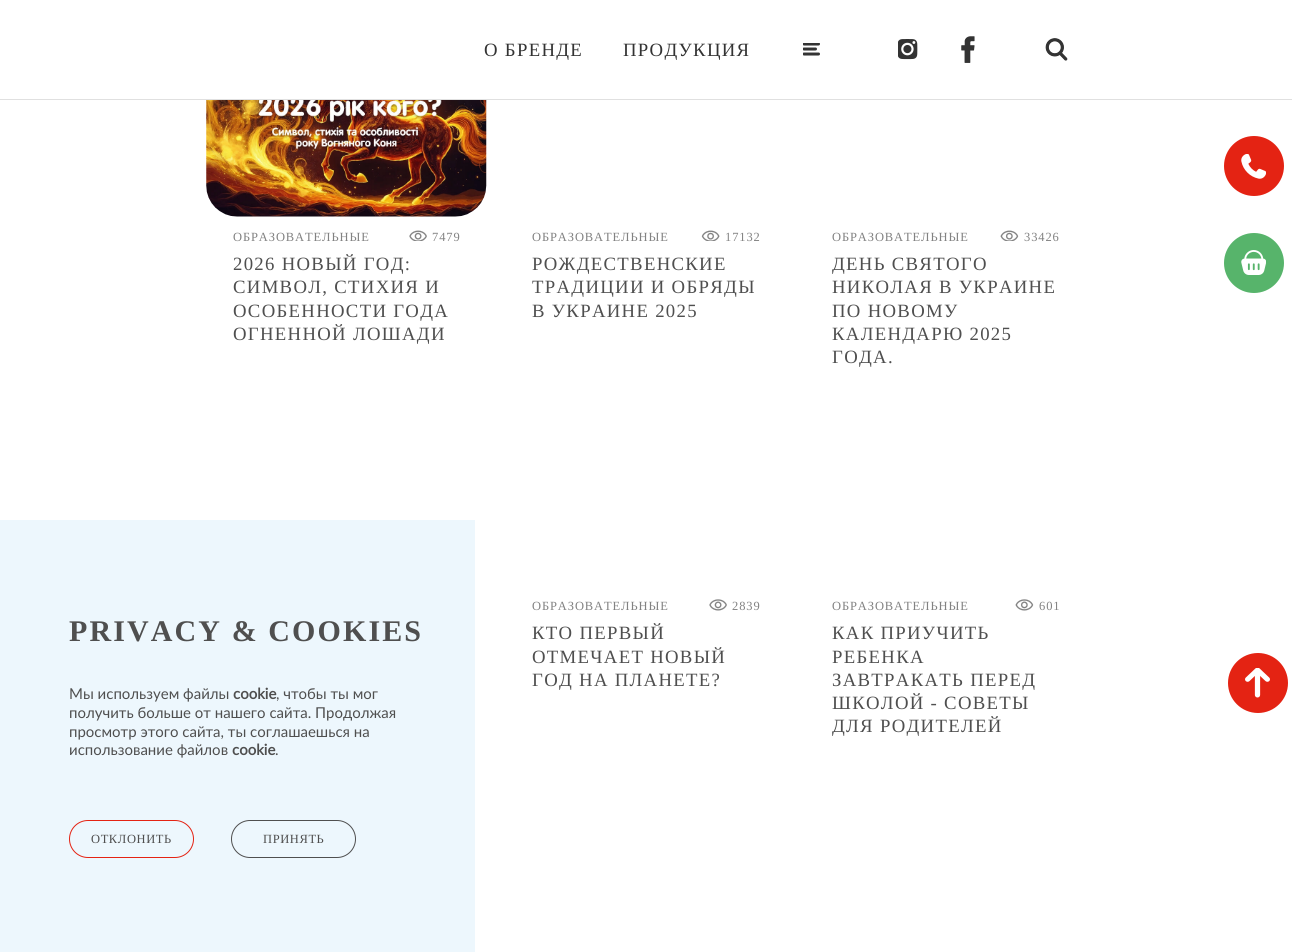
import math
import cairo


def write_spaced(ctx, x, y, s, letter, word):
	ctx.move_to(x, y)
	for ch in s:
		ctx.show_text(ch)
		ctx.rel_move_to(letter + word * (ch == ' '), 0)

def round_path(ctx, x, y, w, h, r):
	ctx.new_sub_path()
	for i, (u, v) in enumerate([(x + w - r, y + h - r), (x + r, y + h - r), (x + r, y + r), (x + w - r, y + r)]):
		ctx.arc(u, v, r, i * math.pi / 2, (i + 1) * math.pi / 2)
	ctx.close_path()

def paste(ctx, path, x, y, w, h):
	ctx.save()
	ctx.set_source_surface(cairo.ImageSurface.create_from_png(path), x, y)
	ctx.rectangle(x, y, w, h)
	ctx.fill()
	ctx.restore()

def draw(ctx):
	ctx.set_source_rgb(1, 1, 1)
	ctx.paint()
	ctx.set_source_rgb(0.878, 0.878, 0.878)
	ctx.rectangle(0, 99, 1292, 1)
	ctx.fill()
	ctx.select_font_face('Liberation Serif')
	ctx.set_font_size(18.75)
	ctx.set_source_rgb(0.2, 0.2, 0.2)
	write_spaced(ctx, 484, 56, 'О БРЕНДЕ', 1.3, 0)
	write_spaced(ctx, 623, 56, 'ПРОДУКЦИЯ', 1.3, 0)
	paste(ctx, 'media/1.png', 803, 43, 17, 13)
	paste(ctx, 'media/2.png', 898, 39, 20, 21)
	paste(ctx, 'media/3.png', 961, 36, 14, 27)
	paste(ctx, 'media/4.png', 1045, 38, 23, 23)
	ctx.set_source_rgb(0.894, 0.137, 0.075)
	ctx.arc(1254, 166, 28.5, 0, 2 * math.pi)
	ctx.fill_preserve()
	ctx.set_line_width(3)
	ctx.stroke()
	paste(ctx, 'media/5.png', 1241, 154, 25, 25)
	paste(ctx, 'media/6.png', 206, 100, 281, 117)
	ctx.set_font_size(12.5)
	ctx.set_source_rgb(0.51, 0.51, 0.51)
	write_spaced(ctx, 233, 241, 'ОБРАЗОВАТЕЛЬНЫЕ', 0.9, 0)
	paste(ctx, 'media/7.png', 409, 230, 18, 11)
	write_spaced(ctx, 432, 241, '7479', 0.9, 0)
	ctx.set_font_size(18.75)
	ctx.set_source_rgb(0.31, 0.31, 0.31)
	for x, y, s in [
		(233, 270, '2026 НОВЫЙ ГОД:'),
		(233, 293, 'СИМВОЛ, СТИХИЯ И'),
		(233, 317, 'ОСОБЕННОСТИ ГОДА'),
		(233, 340, 'ОГНЕННОЙ ЛОШАДИ'),
	]:
		write_spaced(ctx, x, y, s, 1.3, 0)
	ctx.set_font_size(12.5)
	ctx.set_source_rgb(0.51, 0.51, 0.51)
	write_spaced(ctx, 532, 241, 'ОБРАЗОВАТЕЛЬНЫЕ', 0.9, 0)
	paste(ctx, 'media/8.png', 701, 230, 19, 11)
	write_spaced(ctx, 725, 241, '17132', 0.9, 0)
	ctx.set_font_size(18.75)
	ctx.set_source_rgb(0.31, 0.31, 0.31)
	for x, y, s in [
		(532, 270, 'РОЖДЕСТВЕНСКИЕ'),
		(532, 293, 'ТРАДИЦИИ И ОБРЯДЫ'),
		(532, 317, 'В УКРАИНЕ 2025'),
	]:
		write_spaced(ctx, x, y, s, 1.3, 0)
	ctx.set_font_size(12.5)
	ctx.set_source_rgb(0.51, 0.51, 0.51)
	write_spaced(ctx, 832, 241, 'ОБРАЗОВАТЕЛЬНЫЕ', 0.9, 0)
	paste(ctx, 'media/9.png', 1000, 230, 19, 11)
	write_spaced(ctx, 1024, 241, '33426', 0.9, 0)
	ctx.set_font_size(18.75)
	ctx.set_source_rgb(0.31, 0.31, 0.31)
	for x, y, s in [
		(832, 270, 'ДЕНЬ СВЯТОГО'),
		(832, 293, 'НИКОЛАЯ В УКРАИНЕ'),
		(832, 317, 'ПО НОВОМУ'),
		(832, 340, 'КАЛЕНДАРЮ 2025'),
		(832, 363, 'ГОДА.'),
	]:
		write_spaced(ctx, x, y, s, 1.3, 0)
	ctx.set_font_size(12.5)
	ctx.set_source_rgb(0.51, 0.51, 0.51)
	write_spaced(ctx, 532, 610, 'ОБРАЗОВАТЕЛЬНЫЕ', 0.9, 0)
	paste(ctx, 'media/10.png', 709, 599, 18, 12)
	write_spaced(ctx, 732, 610, '2839', 0.9, 0)
	ctx.set_font_size(18.75)
	ctx.set_source_rgb(0.31, 0.31, 0.31)
	for x, y, s in [
		(532, 639, 'КТО ПЕРВЫЙ'),
		(532, 663, 'ОТМЕЧАЕТ НОВЫЙ'),
		(532, 686, 'ГОД НА ПЛАНЕТЕ?'),
	]:
		write_spaced(ctx, x, y, s, 1.3, 0)
	ctx.set_font_size(12.5)
	ctx.set_source_rgb(0.51, 0.51, 0.51)
	write_spaced(ctx, 832, 610, 'ОБРАЗОВАТЕЛЬНЫЕ', 0.9, 0)
	paste(ctx, 'media/11.png', 1015, 599, 19, 12)
	write_spaced(ctx, 1039, 610, '601', 0.9, 0)
	ctx.set_font_size(18.75)
	ctx.set_source_rgb(0.31, 0.31, 0.31)
	for x, y, s in [
		(832, 639, 'КАК ПРИУЧИТЬ'),
		(832, 663, 'РЕБЕНКА'),
		(832, 686, 'ЗАВТРАКАТЬ ПЕРЕД'),
		(832, 709, 'ШКОЛОЙ - СОВЕТЫ'),
		(832, 732, 'ДЛЯ РОДИТЕЛЕЙ'),
	]:
		write_spaced(ctx, x, y, s, 1.3, 0)
	ctx.set_source_rgb(0.929, 0.965, 0.992)
	ctx.rectangle(0, 520, 475, 432)
	ctx.fill()
	ctx.select_font_face('Liberation Serif', cairo.FONT_SLANT_NORMAL, cairo.FONT_WEIGHT_BOLD)
	ctx.set_font_size(30)
	ctx.set_source_rgb(0.31, 0.31, 0.31)
	write_spaced(ctx, 69, 641, 'PRIVACY & COOKIES', 2.1, 0)
	ctx.select_font_face('Lato')
	ctx.set_font_size(15)
	ctx.move_to(69, 699)
	ctx.show_text('Мы используем файлы')
	ctx.select_font_face('Lato', cairo.FONT_SLANT_NORMAL, cairo.FONT_WEIGHT_BOLD)
	ctx.move_to(233, 699)
	ctx.show_text('cookie')
	ctx.select_font_face('Lato')
	for x, y, s in [
		(276, 699, ', чтобы ты мог'),
		(69, 718, 'получить больше от нашего сайта. Продолжая'),
		(69, 737, 'просмотр этого сайта, ты соглашаешься на'),
		(69, 755, 'использование файлов'),
	]:
		ctx.move_to(x, y)
		ctx.show_text(s)
	ctx.select_font_face('Lato', cairo.FONT_SLANT_NORMAL, cairo.FONT_WEIGHT_BOLD)
	ctx.move_to(232, 755)
	ctx.show_text('cookie')
	ctx.select_font_face('Lato')
	ctx.move_to(275, 755)
	ctx.show_text('.')
	round_path(ctx, 69.5, 820.5, 124, 37, 18.5)
	ctx.set_source_rgb(0.894, 0.137, 0.075)
	ctx.set_line_width(1)
	ctx.stroke()
	ctx.select_font_face('Liberation Serif')
	ctx.set_font_size(12.5)
	ctx.set_source_rgb(0.31, 0.31, 0.31)
	write_spaced(ctx, 91, 843, 'ОТКЛОНИТЬ', 0.6, 0)
	round_path(ctx, 231.5, 820.5, 124, 37, 18.5)
	ctx.stroke()
	write_spaced(ctx, 263, 843, 'ПРИНЯТЬ', 0.6, 0)
	ctx.set_source_rgb(0.341, 0.706, 0.42)
	ctx.new_path()
	ctx.arc(1254, 263, 28.5, 0, 2 * math.pi)
	ctx.fill_preserve()
	ctx.set_line_width(3)
	ctx.stroke()
	paste(ctx, 'media/12.png', 1241, 250, 25, 25)
	ctx.set_source_rgb(0.894, 0.137, 0.075)
	ctx.arc(1258, 683, 28.5, 0, 2 * math.pi)
	ctx.fill_preserve()
	ctx.stroke()
	paste(ctx, 'media/13.png', 1245, 668, 25, 30)


surface = cairo.ImageSurface(cairo.FORMAT_RGB24, 1292, 952)
ctx = cairo.Context(surface)
options = cairo.FontOptions()
options.set_hint_metrics(cairo.HINT_METRICS_OFF)
options.set_hint_style(cairo.HINT_STYLE_NONE)
ctx.set_font_options(options)
ctx.set_miter_limit(4)
draw(ctx)
surface.write_to_png('image.png')
